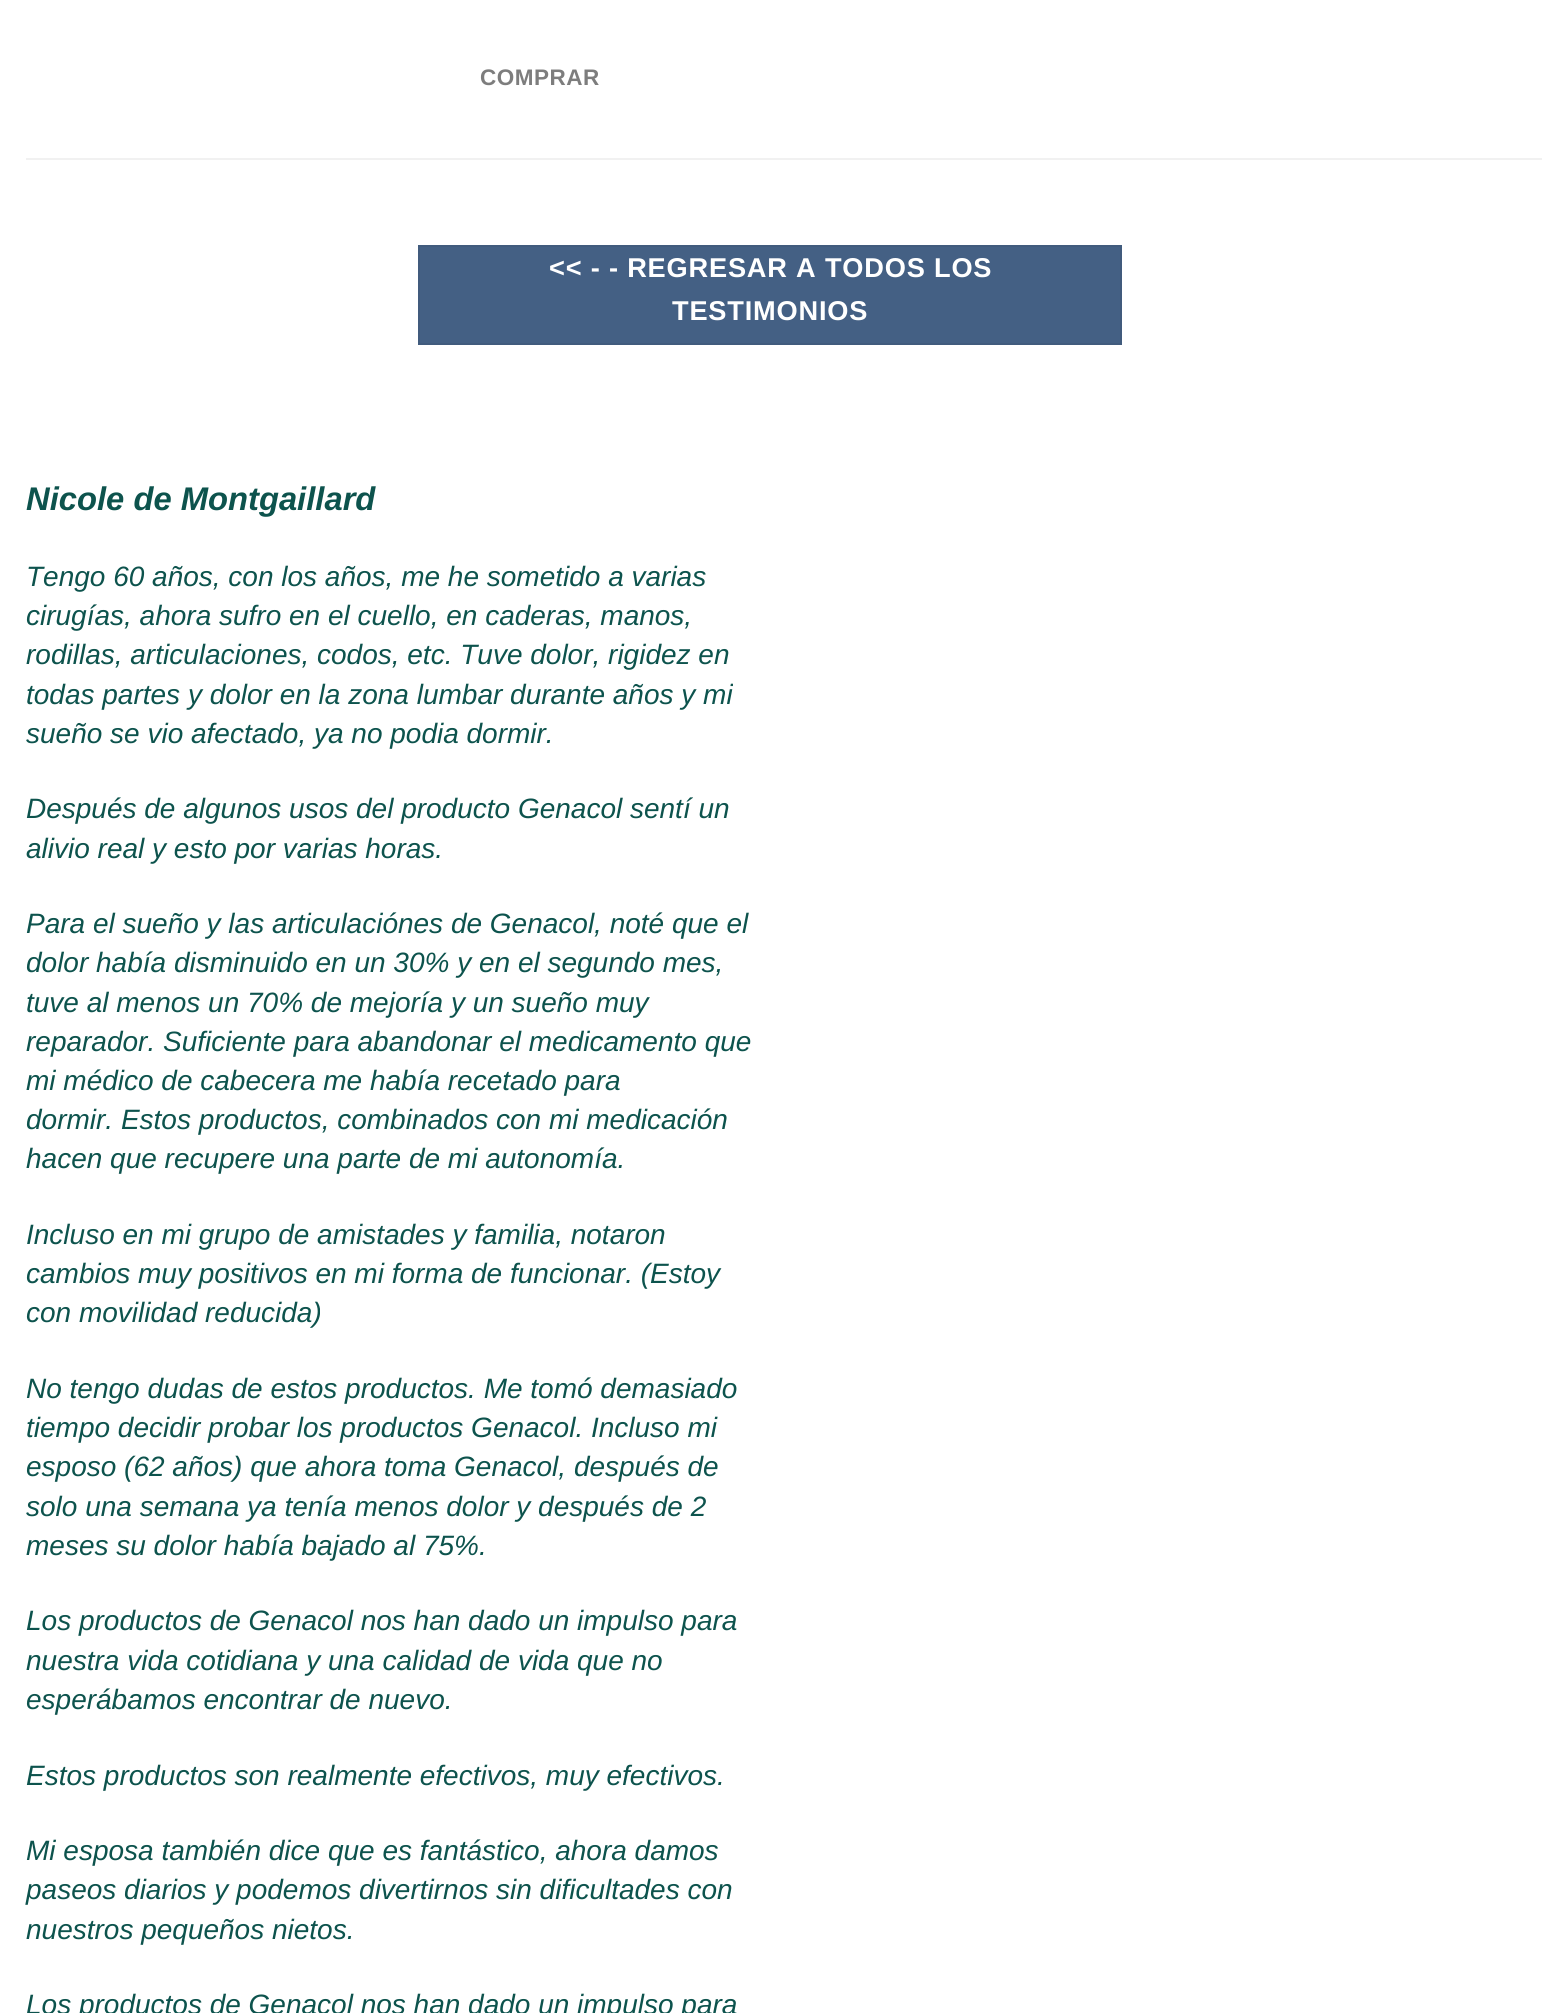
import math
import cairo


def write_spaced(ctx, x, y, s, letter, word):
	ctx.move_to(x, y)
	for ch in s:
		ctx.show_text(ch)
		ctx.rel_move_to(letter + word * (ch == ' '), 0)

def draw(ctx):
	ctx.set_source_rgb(1, 1, 1)
	ctx.paint()
	ctx.select_font_face('Liberation Sans', cairo.FONT_SLANT_NORMAL, cairo.FONT_WEIGHT_BOLD)
	ctx.set_font_size(22.5)
	ctx.set_source_rgb(0.49, 0.49, 0.49)
	write_spaced(ctx, 480, 85, 'COMPRAR', 0.5, 0)
	ctx.set_source_rgb(0.945, 0.945, 0.945)
	ctx.rectangle(26, 158, 1516, 2)
	ctx.fill()
	ctx.set_source_rgb(0.267, 0.376, 0.518)
	ctx.rectangle(419, 246, 702, 98)
	ctx.fill_preserve()
	ctx.set_source_rgb(0.255, 0.357, 0.49)
	ctx.stroke()
	ctx.set_font_size(27.2)
	ctx.set_source_rgb(1, 1, 1)
	write_spaced(ctx, 549, 277, '<< - - REGRESAR A TODOS LOS', 0.8, 0)
	write_spaced(ctx, 672, 320, 'TESTIMONIOS', 0.8, 0)
	ctx.select_font_face('Liberation Sans', cairo.FONT_SLANT_ITALIC, cairo.FONT_WEIGHT_BOLD)
	ctx.set_font_size(32.75)
	ctx.set_source_rgb(0.051, 0.325, 0.302)
	ctx.move_to(26, 510)
	ctx.show_text('Nicole de Montgaillard')
	ctx.select_font_face('Liberation Sans', cairo.FONT_SLANT_ITALIC)
	ctx.set_font_size(28)
	for x, y, s in [
		(26, 586, 'Tengo 60 años, con los años, me he sometido a varias'),
		(26, 625, 'cirugías, ahora sufro en el cuello, en caderas, manos,'),
		(26, 664, 'rodillas, articulaciones, codos, etc. Tuve dolor, rigidez en'),
		(26, 704, 'todas partes y dolor en la zona lumbar durante años y mi'),
		(26, 743, 'sueño se vio afectado, ya no podia dormir.'),
		(26, 818, 'Después de algunos usos del producto Genacol sentí un'),
		(26, 858, 'alivio real y esto por varias horas.'),
		(26, 933, 'Para el sueño y las articulaciónes de Genacol, noté que el'),
		(26, 972, 'dolor había disminuido en un 30% y en el segundo mes,'),
		(26, 1012, 'tuve al menos un 70% de mejoría y un sueño muy'),
		(26, 1051, 'reparador. Suficiente para abandonar el medicamento que'),
		(26, 1090, 'mi médico de cabecera me había recetado para'),
		(26, 1129, 'dormir. Estos productos, combinados con mi medicación'),
		(26, 1168, 'hacen que recupere una parte de mi autonomía.'),
		(26, 1244, 'Incluso en mi grupo de amistades y familia, notaron'),
		(26, 1283, 'cambios muy positivos en mi forma de funcionar. (Estoy'),
		(26, 1322, 'con movilidad reducida)'),
		(26, 1398, 'No tengo dudas de estos productos. Me tomó demasiado'),
		(26, 1437, 'tiempo decidir probar los productos Genacol. Incluso mi'),
		(26, 1476, 'esposo (62 años) que ahora toma Genacol, después de'),
		(26, 1516, 'solo una semana ya tenía menos dolor y después de 2'),
		(26, 1555, 'meses su dolor había bajado al 75%.'),
		(26, 1630, 'Los productos de Genacol nos han dado un impulso para'),
		(26, 1670, 'nuestra vida cotidiana y una calidad de vida que no'),
		(26, 1709, 'esperábamos encontrar de nuevo.'),
		(26, 1785, 'Estos productos son realmente efectivos, muy efectivos.'),
		(26, 1860, 'Mi esposa también dice que es fantástico, ahora damos'),
		(26, 1899, 'paseos diarios y podemos divertirnos sin dificultades con'),
		(26, 1939, 'nuestros pequeños nietos.'),
		(26, 2014, 'Los productos de Genacol nos han dado un impulso para'),
	]:
		ctx.move_to(x, y)
		ctx.show_text(s)


surface = cairo.ImageSurface(cairo.FORMAT_RGB24, 1568, 2013)
ctx = cairo.Context(surface)
options = cairo.FontOptions()
options.set_hint_metrics(cairo.HINT_METRICS_OFF)
options.set_hint_style(cairo.HINT_STYLE_NONE)
ctx.set_font_options(options)
ctx.set_miter_limit(4)
draw(ctx)
surface.write_to_png('image.png')
